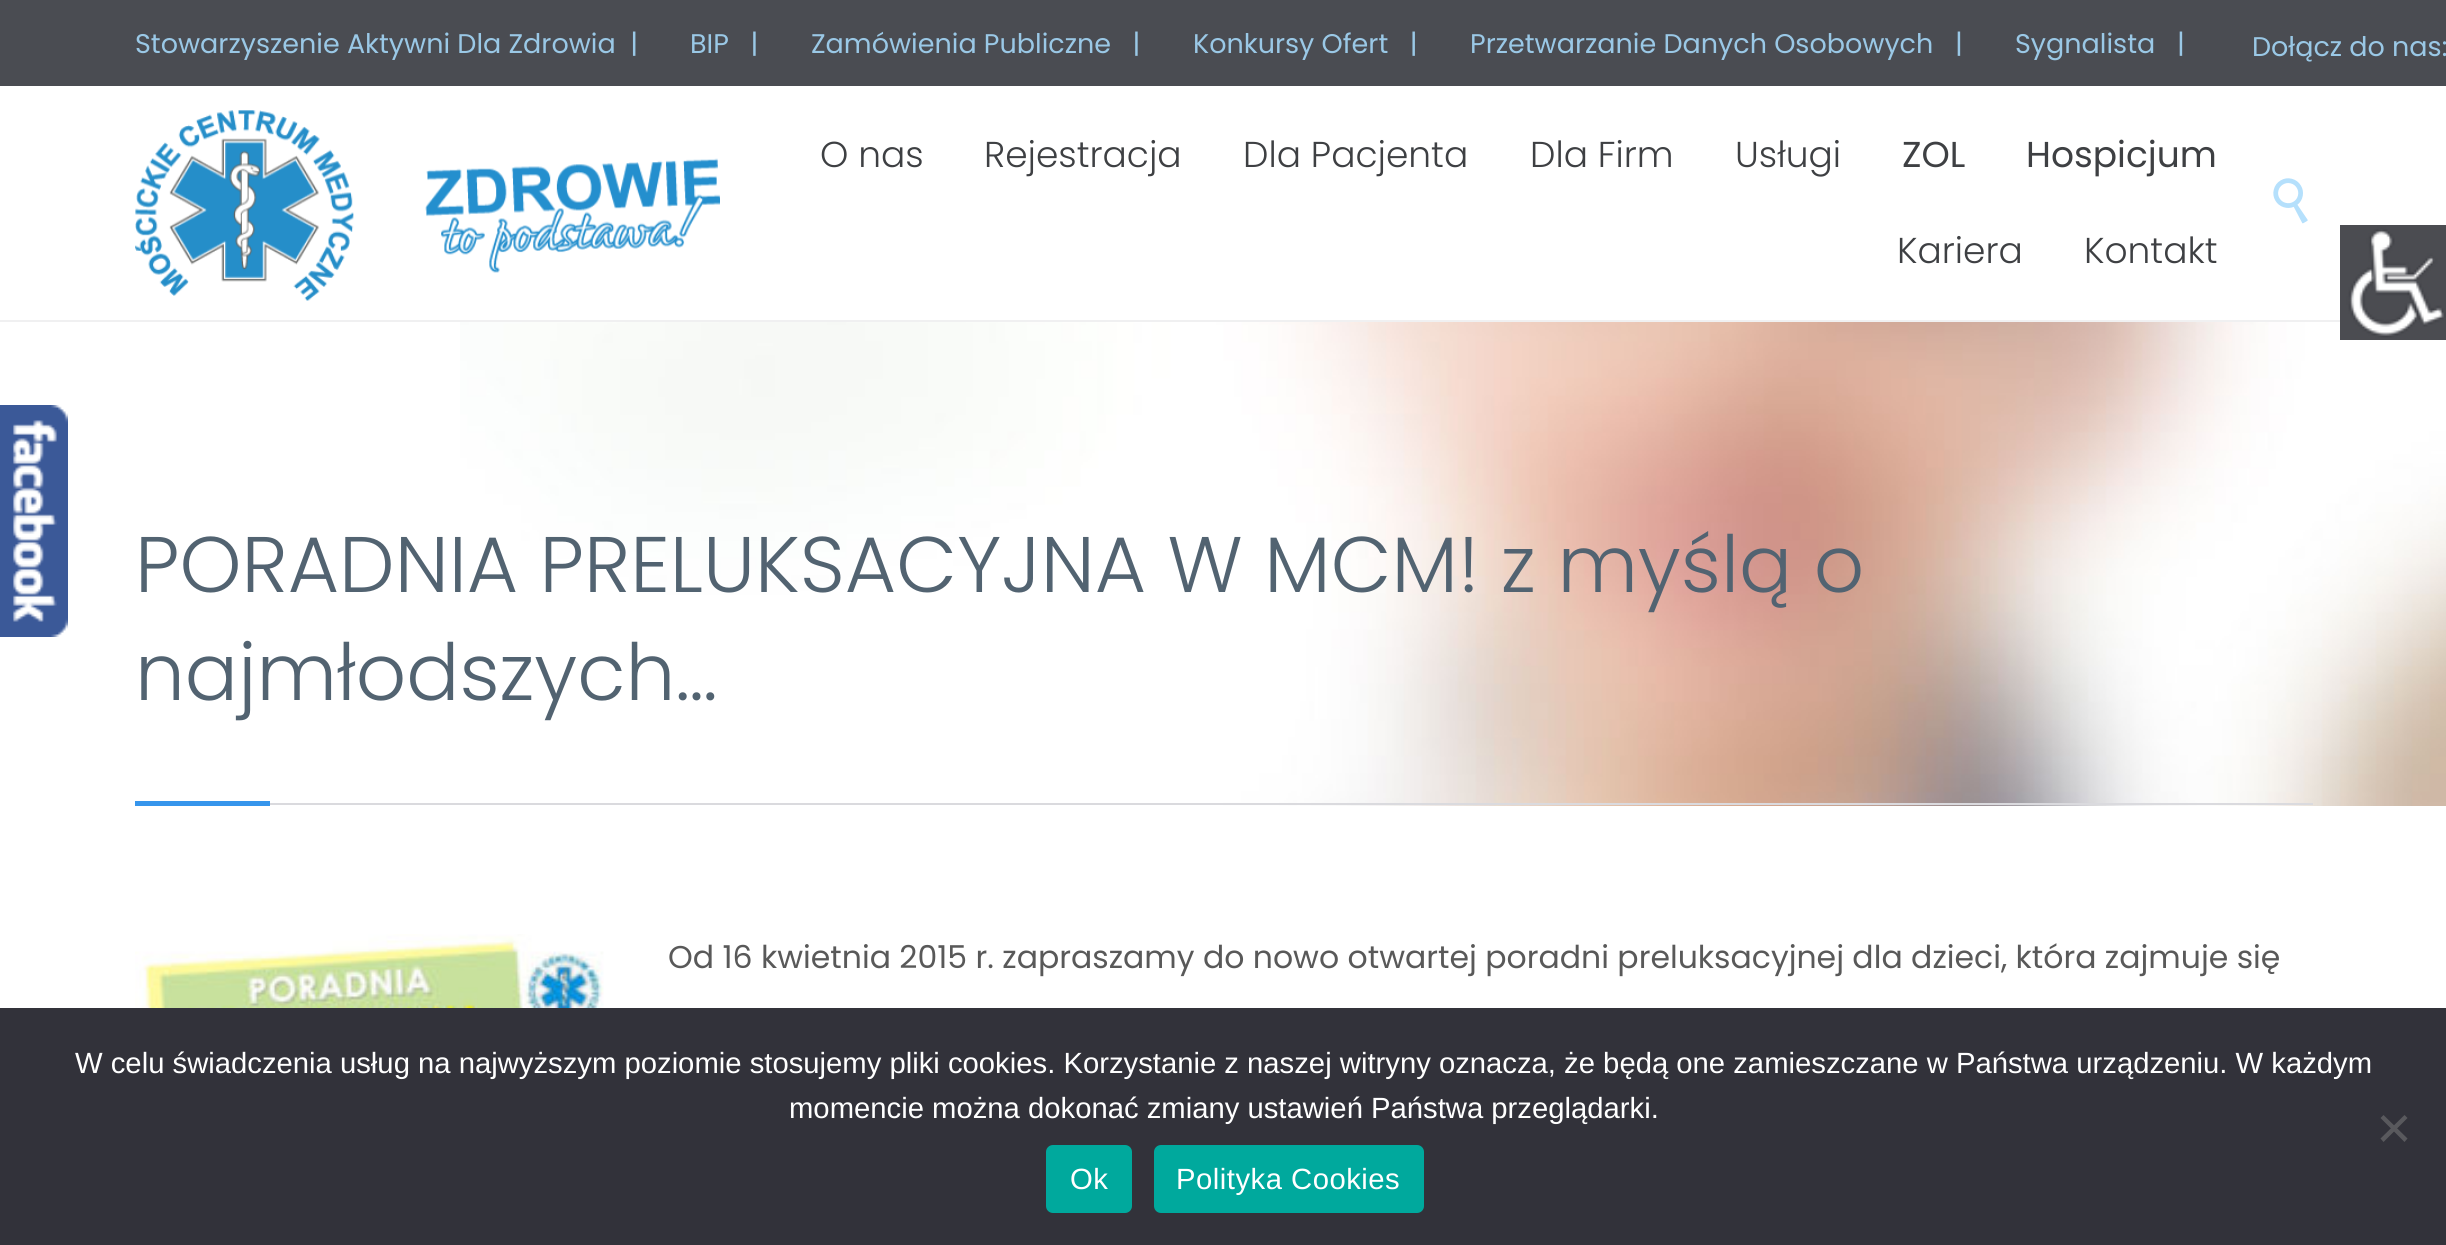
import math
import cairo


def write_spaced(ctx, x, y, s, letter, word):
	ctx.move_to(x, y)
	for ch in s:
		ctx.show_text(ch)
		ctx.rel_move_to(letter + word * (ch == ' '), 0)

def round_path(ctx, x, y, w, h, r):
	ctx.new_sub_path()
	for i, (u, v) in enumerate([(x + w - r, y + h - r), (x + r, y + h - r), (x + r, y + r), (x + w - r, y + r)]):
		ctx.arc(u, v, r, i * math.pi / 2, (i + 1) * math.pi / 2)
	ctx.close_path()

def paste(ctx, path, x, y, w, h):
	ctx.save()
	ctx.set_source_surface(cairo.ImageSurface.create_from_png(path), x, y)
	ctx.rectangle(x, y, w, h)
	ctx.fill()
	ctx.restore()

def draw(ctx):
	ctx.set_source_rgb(1, 1, 1)
	ctx.paint()
	ctx.set_source_rgb(0.941, 0.941, 0.945)
	ctx.rectangle(0, 320, 2340, 2)
	ctx.fill()
	ctx.set_source_rgb(0.29, 0.298, 0.322)
	ctx.rectangle(0, 0, 2446, 86)
	ctx.fill()
	ctx.select_font_face('Poppins')
	ctx.set_font_size(27)
	ctx.set_source_rgb(0.604, 0.784, 0.902)
	for x, y, s in [
		(135, 53, 'Stowarzyszenie Aktywni Dla Zdrowia  |'),
		(690, 53, 'BIP   |'),
		(811, 53, 'Zamówienia Publiczne   |'),
		(1193, 53, 'Konkursy Ofert   |'),
		(1470, 53, 'Przetwarzanie Danych Osobowych   |'),
		(2015, 53, 'Sygnalista   |'),
		(2252, 56, 'Dołącz do nas:'),
	]:
		ctx.move_to(x, y)
		ctx.show_text(s)
	paste(ctx, 'media/1.png', 135, 110, 585, 191)
	ctx.select_font_face('Poppins Light')
	ctx.set_font_size(36)
	ctx.set_source_rgb(0.243, 0.251, 0.263)
	for x, y, s in [
		(820, 167, 'O nas'),
		(984, 167, 'Rejestracja'),
		(1243, 167, 'Dla Pacjenta'),
		(1530, 167, 'Dla Firm'),
		(1735, 167, 'Usługi'),
	]:
		ctx.move_to(x, y)
		ctx.show_text(s)
	ctx.select_font_face('Poppins')
	ctx.move_to(1902, 167)
	ctx.show_text('ZOL')
	ctx.move_to(2026, 167)
	ctx.show_text('Hospicjum')
	ctx.select_font_face('Poppins Light')
	ctx.move_to(1897, 263)
	ctx.show_text('Kariera')
	ctx.move_to(2084, 263)
	ctx.show_text('Kontakt')
	paste(ctx, 'media/2.png', 2273, 178, 35, 46)
	paste(ctx, 'media/3.png', 460, 322, 1986, 484)
	ctx.set_source_rgb(0.855, 0.855, 0.871)
	ctx.rectangle(270, 803, 2043, 2)
	ctx.fill()
	ctx.set_font_size(78.75)
	ctx.set_source_rgb(0.322, 0.388, 0.443)
	ctx.move_to(135, 592)
	ctx.show_text('PORADNIA PRELUKSACYJNA W MCM! z myślą o')
	ctx.move_to(135, 700)
	ctx.show_text('najmłodszych…')
	ctx.set_source_rgb(0.212, 0.584, 0.922)
	ctx.rectangle(135, 801, 135, 5)
	ctx.fill()
	paste(ctx, 'media/4.png', 135, 934, 477, 74)
	ctx.select_font_face('Poppins')
	ctx.set_font_size(31.5)
	ctx.set_source_rgb(0.349, 0.349, 0.349)
	ctx.move_to(668, 968)
	ctx.show_text('Od 16 kwietnia 2015 r. zapraszamy do nowo otwartej poradni preluksacyjnej dla dzieci, która zajmuje się')
	paste(ctx, 'media/5.png', 2340, 225, 106, 115)
	paste(ctx, 'media/6.png', 0, 405, 68, 232)
	ctx.set_source_rgb(0.196, 0.196, 0.227)
	ctx.rectangle(0, 1008, 2446, 237)
	ctx.fill()
	ctx.select_font_face('Liberation Sans')
	ctx.set_font_size(29.25)
	ctx.set_source_rgb(1, 1, 1)
	ctx.move_to(75, 1073)
	ctx.show_text('W celu świadczenia usług na najwyższym poziomie stosujemy pliki cookies. Korzystanie z naszej witryny oznacza, że będą one zamieszczane w Państwa urządzeniu. W każdym')
	ctx.move_to(789, 1118)
	ctx.show_text('momencie można dokonać zmiany ustawień Państwa przeglądarki.')
	ctx.set_source_rgb(0.349, 0.349, 0.365)
	ctx.new_path()
	ctx.move_to(2404.5, 1115)
	ctx.line_to(2407.5, 1118)
	ctx.line_to(2383.5, 1142)
	ctx.line_to(2380.5, 1138.5)
	ctx.close_path()
	ctx.fill()
	ctx.new_path()
	ctx.move_to(2380.5, 1118)
	ctx.line_to(2383.5, 1115)
	ctx.line_to(2407.5, 1138.5)
	ctx.line_to(2404.5, 1142)
	ctx.close_path()
	ctx.fill()
	ctx.set_source_rgb(0, 0.663, 0.616)
	round_path(ctx, 1046, 1145, 86, 68, 7)
	ctx.fill()
	ctx.set_source_rgb(1, 1, 1)
	write_spaced(ctx, 1070, 1189, 'Ok', 0.5, 0)
	ctx.set_source_rgb(0, 0.663, 0.616)
	round_path(ctx, 1154, 1145, 270, 68, 7)
	ctx.fill()
	ctx.set_source_rgb(1, 1, 1)
	write_spaced(ctx, 1176, 1189, 'Polityka Cookies', 0.5, 0)


surface = cairo.ImageSurface(cairo.FORMAT_RGB24, 2446, 1245)
ctx = cairo.Context(surface)
options = cairo.FontOptions()
options.set_hint_metrics(cairo.HINT_METRICS_OFF)
options.set_hint_style(cairo.HINT_STYLE_NONE)
ctx.set_font_options(options)
ctx.set_miter_limit(4)
draw(ctx)
surface.write_to_png('image.png')
